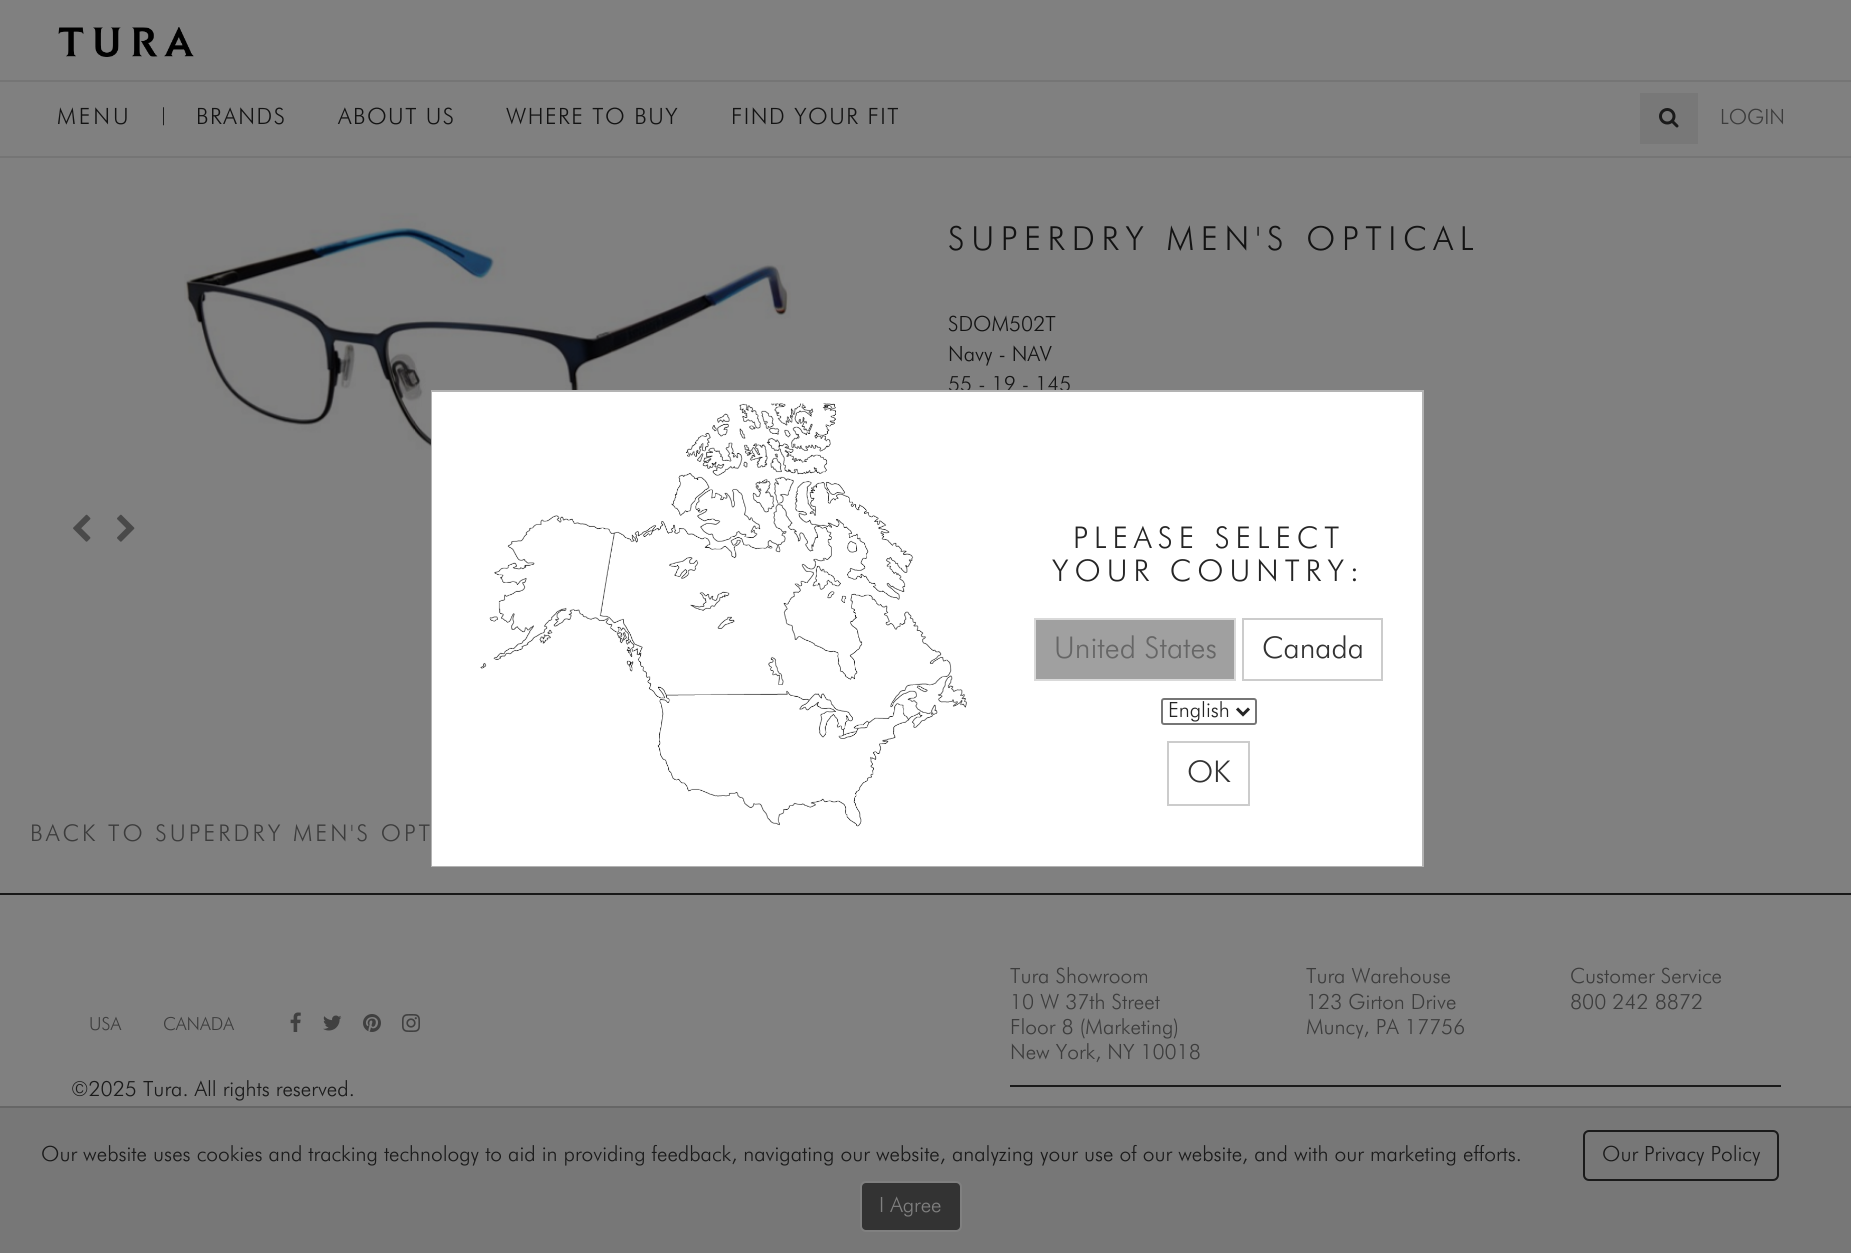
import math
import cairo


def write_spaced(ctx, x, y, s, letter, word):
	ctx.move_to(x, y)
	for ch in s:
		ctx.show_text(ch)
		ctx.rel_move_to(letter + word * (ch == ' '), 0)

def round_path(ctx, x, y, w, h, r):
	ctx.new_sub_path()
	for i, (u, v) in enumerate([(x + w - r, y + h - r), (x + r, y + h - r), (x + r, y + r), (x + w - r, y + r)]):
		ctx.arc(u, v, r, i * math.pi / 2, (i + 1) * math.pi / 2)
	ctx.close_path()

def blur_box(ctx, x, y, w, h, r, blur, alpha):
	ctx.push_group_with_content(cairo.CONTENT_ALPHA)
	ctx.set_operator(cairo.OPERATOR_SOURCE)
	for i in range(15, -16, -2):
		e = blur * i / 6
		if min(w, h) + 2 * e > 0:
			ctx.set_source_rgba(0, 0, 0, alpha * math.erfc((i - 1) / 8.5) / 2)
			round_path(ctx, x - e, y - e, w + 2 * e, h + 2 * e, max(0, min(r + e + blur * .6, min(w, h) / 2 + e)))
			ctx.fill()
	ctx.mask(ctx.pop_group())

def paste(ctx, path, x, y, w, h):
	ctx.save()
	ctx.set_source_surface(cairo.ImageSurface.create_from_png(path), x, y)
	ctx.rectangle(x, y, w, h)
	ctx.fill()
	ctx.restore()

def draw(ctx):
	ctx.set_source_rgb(0.502, 0.502, 0.502)
	ctx.paint()
	ctx.set_source_rgb(0.459, 0.459, 0.459)
	ctx.rectangle(0, 156, 1851, 2)
	ctx.fill()
	paste(ctx, 'media/1.png', 58, 27, 136, 30)
	ctx.rectangle(0, 80, 1851, 2)
	ctx.fill()
	ctx.select_font_face('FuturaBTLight')
	ctx.set_font_size(22.5)
	ctx.set_source_rgb(0.075, 0.075, 0.075)
	write_spaced(ctx, 57, 124, 'MENU', 3, 0)
	ctx.set_font_size(18)
	ctx.set_source_rgb(0, 0, 0)
	ctx.move_to(159, 121)
	ctx.show_text('|')
	ctx.set_font_size(22.5)
	ctx.set_source_rgb(0.075, 0.075, 0.075)
	for x, y, s in [
		(196, 124, 'BRANDS'),
		(338, 124, 'ABOUT US'),
		(506, 124, 'WHERE TO BUY'),
		(731, 124, 'FIND YOUR FIT'),
	]:
		write_spaced(ctx, x, y, s, 1.5, 0)
	ctx.set_source_rgb(0.471, 0.471, 0.471)
	ctx.rectangle(1640, 93, 58, 51)
	ctx.fill()
	paste(ctx, 'media/2.png', 1659, 108, 20, 20)
	ctx.set_font_size(21)
	ctx.set_source_rgb(0.235, 0.235, 0.235)
	ctx.move_to(1720, 124)
	ctx.show_text('LOGIN')
	paste(ctx, 'media/3.png', 184, 213, 607, 254)
	paste(ctx, 'media/4.png', 73, 514, 18, 28)
	paste(ctx, 'media/5.png', 117, 514, 18, 28)
	ctx.set_font_size(33.2)
	ctx.set_source_rgb(0.075, 0.075, 0.075)
	write_spaced(ctx, 948, 250, 'SUPERDRY MEN\'S OPTICAL', 6.6, 0)
	ctx.set_font_size(21)
	for x, y, s in [
		(948, 331, 'SDOM502T'),
		(948, 361, 'Navy - NAV'),
		(948, 391, '55 - 19 - 145'),
	]:
		ctx.move_to(x, y)
		ctx.show_text(s)
	ctx.set_source_rgb(0.502, 0.502, 0.502)
	blur_box(ctx, 431, 390, 996, 480, 0, 5, 0.3)
	ctx.rectangle(432, 391, 991, 475)
	ctx.set_source_rgb(0.702, 0.702, 0.702)
	ctx.stroke()
	ctx.set_source_rgb(1, 1, 1)
	ctx.rectangle(432, 392, 990, 474)
	ctx.fill()
	paste(ctx, 'media/6.png', 480, 403, 487, 424)
	ctx.set_font_size(30)
	ctx.set_source_rgb(0.145, 0.145, 0.145)
	write_spaced(ctx, 1073, 548, 'PLEASE SELECT', 6, 0)
	write_spaced(ctx, 1052, 581, 'YOUR COUNTRY:', 6, 0)
	ctx.set_source_rgb(0.627, 0.627, 0.627)
	ctx.rectangle(1035, 619, 200, 61)
	ctx.fill_preserve()
	ctx.set_source_rgb(0.851, 0.851, 0.851)
	ctx.stroke()
	ctx.set_source_rgb(0.4, 0.4, 0.4)
	ctx.move_to(1054, 658)
	ctx.show_text('United States')
	ctx.rectangle(1243, 619, 139, 61)
	ctx.set_source_rgb(0.8, 0.8, 0.8)
	ctx.stroke()
	ctx.set_source_rgb(0.2, 0.2, 0.2)
	ctx.move_to(1262, 658)
	ctx.show_text('Canada')
	round_path(ctx, 1162, 699, 94, 25, 2)
	ctx.set_source_rgb(0.463, 0.463, 0.463)
	ctx.stroke()
	ctx.new_path()
	ctx.move_to(1237, 708.5)
	ctx.line_to(1243, 714.5)
	ctx.line_to(1249, 708.5)
	ctx.set_source_rgb(0.145, 0.145, 0.145)
	ctx.set_line_width(3)
	ctx.stroke()
	ctx.set_font_size(21)
	ctx.move_to(1168, 717)
	ctx.show_text('English')
	ctx.rectangle(1168, 742, 81, 63)
	ctx.set_source_rgb(0.8, 0.8, 0.8)
	ctx.set_line_width(2)
	ctx.stroke()
	ctx.set_font_size(30)
	ctx.set_source_rgb(0.2, 0.2, 0.2)
	ctx.move_to(1187, 782)
	ctx.show_text('OK')
	ctx.set_source_rgb(0.094, 0.094, 0.094)
	ctx.rectangle(0, 893, 1851, 2)
	ctx.fill()
	ctx.set_font_size(23.1)
	ctx.set_source_rgb(0.235, 0.235, 0.235)
	write_spaced(ctx, 30, 841, 'BACK TO SUPERDRY MEN\'S OPT', 3, 0)
	ctx.set_font_size(18)
	ctx.move_to(89, 1030)
	ctx.show_text('USA')
	ctx.move_to(163, 1030)
	ctx.show_text('CANADA')
	paste(ctx, 'media/7.png', 290, 1012, 11, 20)
	paste(ctx, 'media/8.png', 323, 1015, 19, 16)
	paste(ctx, 'media/9.png', 363, 1014, 18, 18)
	paste(ctx, 'media/10.png', 402, 1014, 18, 18)
	ctx.set_font_size(21)
	ctx.set_source_rgb(0.102, 0.102, 0.102)
	ctx.move_to(71, 1096)
	ctx.show_text('©2025 Tura. All rights reserved.')
	ctx.rectangle(1010, 1085, 771, 2)
	ctx.fill()
	ctx.set_source_rgb(0.235, 0.235, 0.235)
	for x, y, s in [
		(1010, 983, 'Tura Showroom'),
		(1010, 1009, '10 W 37th Street'),
		(1010, 1034, 'Floor 8 (Marketing)'),
		(1010, 1059, 'New York, NY 10018'),
		(1306, 983, 'Tura Warehouse'),
		(1306, 1009, '123 Girton Drive'),
		(1306, 1034, 'Muncy, PA 17756'),
		(1570, 983, 'Customer Service'),
		(1570, 1009, '800 242 8872'),
	]:
		ctx.move_to(x, y)
		ctx.show_text(s)
	ctx.set_source_rgb(0.467, 0.467, 0.467)
	ctx.rectangle(0, 1108, 1851, 145)
	ctx.fill()
	ctx.set_source_rgb(0.4, 0.4, 0.4)
	ctx.rectangle(0, 1106, 1851, 2)
	ctx.fill()
	ctx.set_source_rgb(0.102, 0.102, 0.102)
	ctx.move_to(41, 1161)
	ctx.show_text('Our website uses cookies and tracking technology to aid in providing feedback, navigating our website, analyzing your use of our website, and with our marketing efforts.')
	round_path(ctx, 1584, 1131, 194, 49, 5)
	ctx.stroke()
	ctx.move_to(1602, 1161)
	ctx.show_text('Our Privacy Policy')
	ctx.set_source_rgb(0.2, 0.2, 0.2)
	round_path(ctx, 861, 1182, 100, 49, 5)
	ctx.fill_preserve()
	ctx.set_source_rgb(0.502, 0.502, 0.502)
	ctx.stroke()
	ctx.move_to(879, 1212)
	ctx.show_text('I Agree')


surface = cairo.ImageSurface(cairo.FORMAT_RGB24, 1851, 1253)
ctx = cairo.Context(surface)
options = cairo.FontOptions()
options.set_hint_metrics(cairo.HINT_METRICS_OFF)
options.set_hint_style(cairo.HINT_STYLE_NONE)
ctx.set_font_options(options)
ctx.set_miter_limit(4)
draw(ctx)
surface.write_to_png('image.png')
